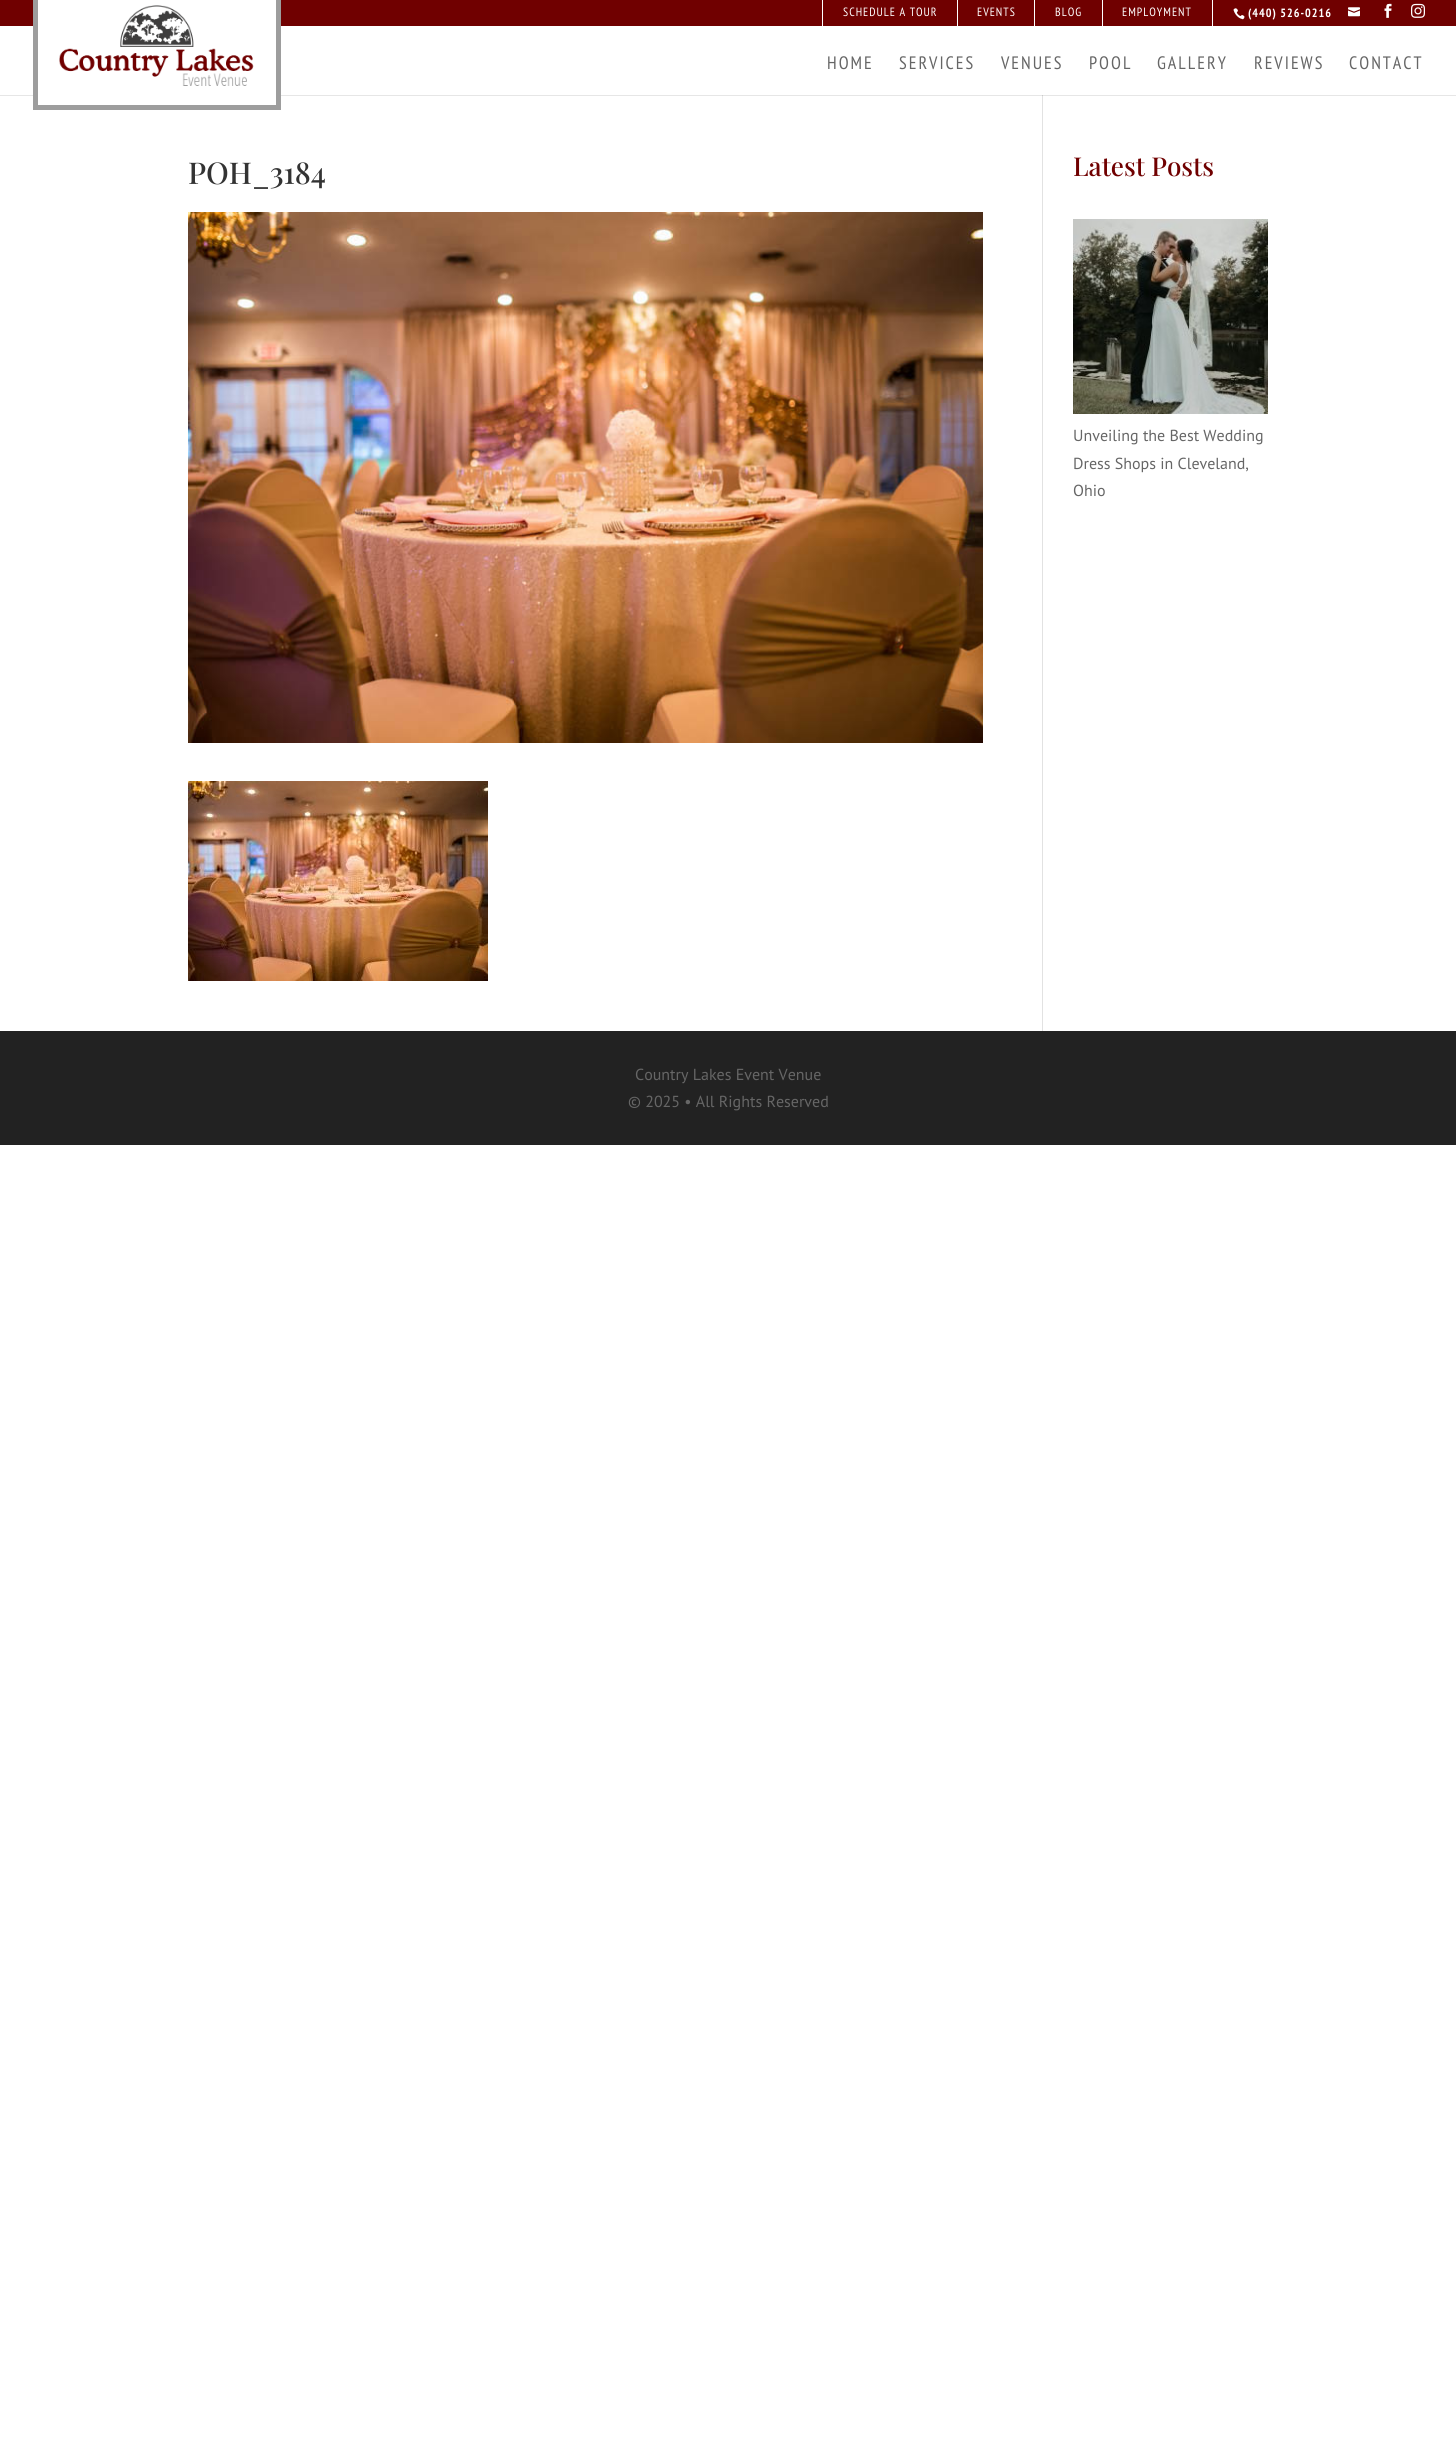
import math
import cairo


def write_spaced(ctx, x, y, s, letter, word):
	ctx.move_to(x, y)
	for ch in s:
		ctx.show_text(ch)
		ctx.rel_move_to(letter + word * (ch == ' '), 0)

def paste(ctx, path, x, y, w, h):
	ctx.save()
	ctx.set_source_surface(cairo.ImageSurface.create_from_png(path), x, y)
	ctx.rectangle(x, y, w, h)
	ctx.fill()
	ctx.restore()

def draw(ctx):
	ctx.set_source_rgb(1, 1, 1)
	ctx.paint()
	ctx.set_source_rgb(0.902, 0.902, 0.902)
	ctx.rectangle(0, 95, 1456, 1)
	ctx.fill()
	ctx.set_source_rgb(0.439, 0, 0)
	ctx.rectangle(0, 0, 1456, 26)
	ctx.fill()
	ctx.set_source_rgb(1, 1, 1)
	ctx.rectangle(957, 0, 1, 26)
	ctx.rectangle(822, 0, 1, 26)
	ctx.fill()
	ctx.select_font_face('PT Sans Narrow')
	ctx.set_font_size(12)
	write_spaced(ctx, 843, 16, 'SCHEDULE A TOUR', 1, 0)
	write_spaced(ctx, 977, 16, 'EVENTS', 1, 0)
	ctx.rectangle(1102, 0, 1, 26)
	ctx.fill()
	ctx.rectangle(1034, 0, 1, 26)
	ctx.fill()
	write_spaced(ctx, 1055, 16, 'BLOG', 1, 0)
	ctx.rectangle(1212, 0, 1, 26)
	ctx.fill()
	write_spaced(ctx, 1122, 16, 'EMPLOYMENT', 1, 0)
	paste(ctx, 'media/1.png', 1233, 8, 12, 12)
	ctx.select_font_face('PT Sans Narrow', cairo.FONT_SLANT_NORMAL, cairo.FONT_WEIGHT_BOLD)
	write_spaced(ctx, 1248, 17, '(440) 526-0216', 1, 0)
	paste(ctx, 'media/2.png', 1348, 7, 12, 10)
	paste(ctx, 'media/3.png', 1384, 3, 8, 15)
	paste(ctx, 'media/4.png', 1411, 3, 14, 15)
	ctx.rectangle(38, 0, 238, 96)
	ctx.fill()
	ctx.rectangle(35.5, -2.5, 243, 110)
	ctx.set_source_rgb(0.616, 0.616, 0.616)
	ctx.set_line_width(5)
	ctx.stroke()
	paste(ctx, 'media/5.png', 59, 5, 195, 81)
	ctx.select_font_face('PT Sans Narrow')
	ctx.set_font_size(18)
	ctx.set_source_rgb(0.4, 0.4, 0.4)
	for x, y, s in [
		(827, 69, 'HOME'),
		(899, 69, 'SERVICES'),
		(1001, 69, 'VENUES'),
		(1089, 69, 'POOL'),
		(1157, 69, 'GALLERY'),
		(1254, 69, 'REVIEWS'),
		(1349, 69, 'CONTACT'),
	]:
		write_spaced(ctx, x, y, s, 2, 0)
	ctx.set_source_rgb(0.886, 0.886, 0.886)
	ctx.rectangle(1042, 95, 1, 936)
	ctx.fill()
	ctx.set_source_rgb(0.796, 0.796, 0.796)
	ctx.rectangle(1042, 95, 1, 1)
	ctx.fill()
	ctx.select_font_face('Playfair Display Medium')
	ctx.set_font_size(30)
	ctx.set_source_rgb(0.2, 0.2, 0.2)
	ctx.move_to(188, 184)
	ctx.show_text('POH_3184')
	paste(ctx, 'media/6.png', 188, 212, 795, 531)
	paste(ctx, 'media/7.png', 188, 781, 300, 200)
	ctx.set_font_size(26)
	ctx.set_source_rgb(0.439, 0, 0)
	ctx.move_to(1073, 176)
	ctx.show_text('Latest Posts')
	paste(ctx, 'media/8.png', 1073, 219, 195, 195)
	ctx.select_font_face('PT Sans')
	ctx.set_font_size(16)
	ctx.set_source_rgb(0.4, 0.4, 0.4)
	for x, y, s in [
		(1073, 441, 'Unveiling the Best Wedding'),
		(1073, 469, 'Dress Shops in Cleveland,'),
		(1073, 496, 'Ohio'),
	]:
		ctx.move_to(x, y)
		ctx.show_text(s)
	ctx.set_source_rgb(0.133, 0.133, 0.133)
	ctx.rectangle(0, 1031, 1456, 114)
	ctx.fill()
	ctx.set_source_rgb(0.4, 0.4, 0.4)
	ctx.move_to(635, 1080)
	ctx.show_text('Country Lakes Event Venue')
	ctx.move_to(628, 1107)
	ctx.show_text('© 2025 • All Rights Reserved')


surface = cairo.ImageSurface(cairo.FORMAT_RGB24, 1456, 2460)
ctx = cairo.Context(surface)
options = cairo.FontOptions()
options.set_hint_metrics(cairo.HINT_METRICS_OFF)
options.set_hint_style(cairo.HINT_STYLE_NONE)
ctx.set_font_options(options)
ctx.set_miter_limit(4)
draw(ctx)
surface.write_to_png('image.png')
